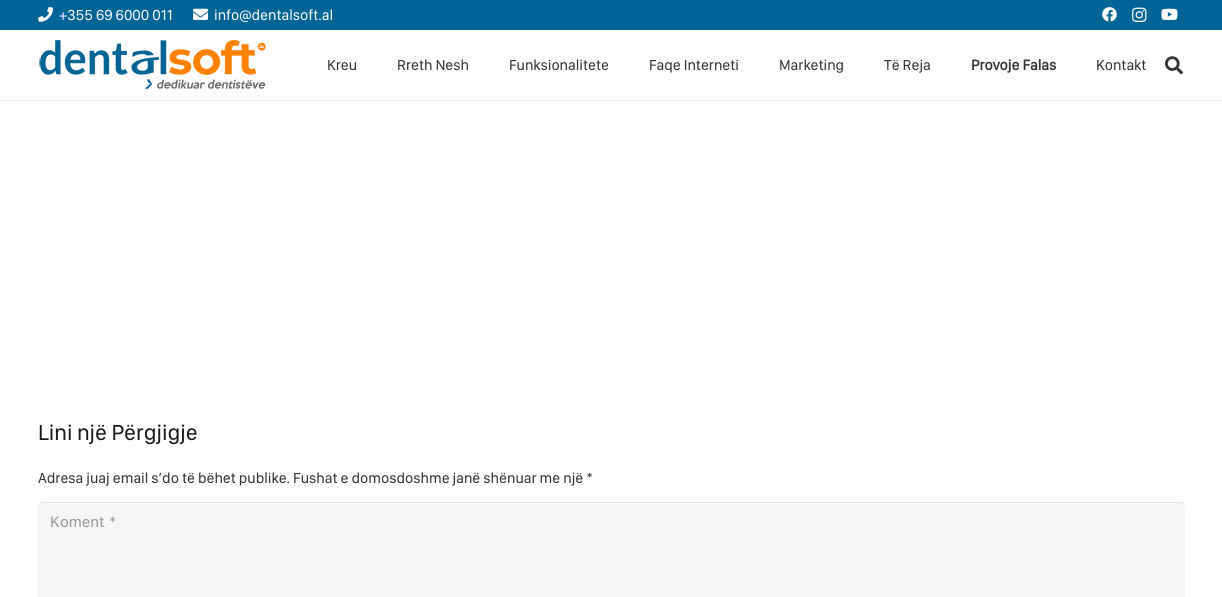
import math
import cairo


def round_path(ctx, x, y, w, h, r):
	ctx.new_sub_path()
	for i, (u, v) in enumerate([(x + w - r, y + h - r), (x + r, y + h - r), (x + r, y + r), (x + w - r, y + r)]):
		ctx.arc(u, v, r, i * math.pi / 2, (i + 1) * math.pi / 2)
	ctx.close_path()

def paste(ctx, path, x, y, w, h):
	ctx.save()
	ctx.set_source_surface(cairo.ImageSurface.create_from_png(path), x, y)
	ctx.rectangle(x, y, w, h)
	ctx.fill()
	ctx.restore()

def draw(ctx):
	ctx.set_source_rgb(1, 1, 1)
	ctx.paint()
	ctx.set_source_rgb(0, 0.392, 0.588)
	ctx.rectangle(0, 0, 1222, 30)
	ctx.fill()
	paste(ctx, 'media/1.png', 38, 6, 15, 16)
	ctx.select_font_face('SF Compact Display')
	ctx.set_font_size(15)
	ctx.set_source_rgb(1, 1, 1)
	ctx.move_to(59, 20)
	ctx.show_text('+355 69 6000 011')
	paste(ctx, 'media/2.png', 193, 8, 15, 12)
	ctx.move_to(214, 20)
	ctx.show_text('info@dentalsoft.al')
	paste(ctx, 'media/3.png', 1102, 7, 15, 15)
	paste(ctx, 'media/4.png', 1132, 7, 15, 15)
	paste(ctx, 'media/5.png', 1161, 8, 17, 12)
	ctx.set_source_rgb(0.922, 0.922, 0.922)
	ctx.rectangle(0, 100, 1222, 1)
	ctx.fill()
	paste(ctx, 'media/6.png', 39, 40, 227, 49)
	ctx.set_source_rgb(0.2, 0.2, 0.2)
	for x, y, s in [
		(327, 70, 'Kreu'),
		(397, 70, 'Rreth Nesh'),
		(509, 70, 'Funksionalitete'),
		(649, 70, 'Faqe Interneti'),
		(779, 70, 'Marketing'),
		(884, 70, 'Të Reja'),
	]:
		ctx.move_to(x, y)
		ctx.show_text(s)
	ctx.select_font_face('SF Compact Display', cairo.FONT_SLANT_NORMAL, cairo.FONT_WEIGHT_BOLD)
	ctx.move_to(971, 70)
	ctx.show_text('Provoje Falas')
	ctx.select_font_face('SF Compact Display')
	ctx.move_to(1096, 70)
	ctx.show_text('Kontakt')
	paste(ctx, 'media/7.png', 1165, 56, 18, 19)
	ctx.set_font_size(22.5)
	ctx.set_source_rgb(0.102, 0.102, 0.102)
	ctx.move_to(38, 440)
	ctx.show_text('Lini një Përgjigje')
	ctx.set_font_size(15)
	ctx.set_source_rgb(0.2, 0.2, 0.2)
	ctx.move_to(38, 483)
	ctx.show_text('Adresa juaj email s’do të bëhet publike. Fushat e domosdoshme janë shënuar me një *')
	ctx.set_source_rgb(0.961, 0.961, 0.961)
	round_path(ctx, 38, 502, 1147, 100, 5)
	ctx.fill()
	ctx.set_source_rgba(0, 0, 0, 0.08)
	ctx.new_path()
	ctx.move_to(42, 503)
	ctx.line_to(1180, 503)
	ctx.curve_to(1183, 503, 1185, 505, 1185, 508)
	ctx.curve_to(1185, 505, 1183, 502, 1180, 502)
	ctx.line_to(43, 502)
	ctx.curve_to(40, 502, 38, 505, 38, 508)
	ctx.curve_to(38, 505, 40, 503, 42, 503)
	ctx.close_path()
	ctx.fill()
	ctx.select_font_face('SF Pro Text')
	ctx.set_source_rgb(0.58, 0.58, 0.58)
	ctx.move_to(50, 527)
	ctx.show_text('Koment *')


surface = cairo.ImageSurface(cairo.FORMAT_RGB24, 1222, 597)
ctx = cairo.Context(surface)
options = cairo.FontOptions()
options.set_hint_metrics(cairo.HINT_METRICS_OFF)
options.set_hint_style(cairo.HINT_STYLE_NONE)
ctx.set_font_options(options)
ctx.set_miter_limit(4)
draw(ctx)
surface.write_to_png('image.png')
